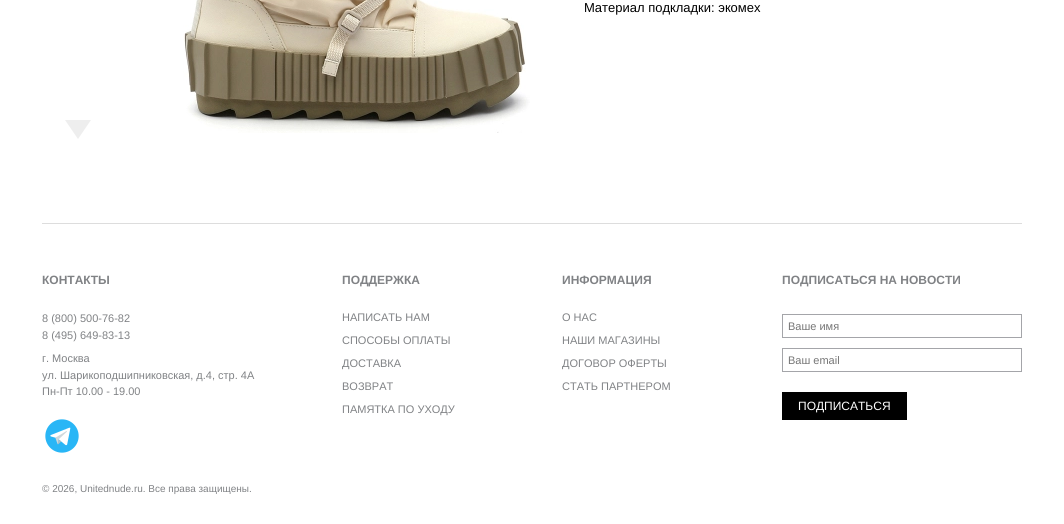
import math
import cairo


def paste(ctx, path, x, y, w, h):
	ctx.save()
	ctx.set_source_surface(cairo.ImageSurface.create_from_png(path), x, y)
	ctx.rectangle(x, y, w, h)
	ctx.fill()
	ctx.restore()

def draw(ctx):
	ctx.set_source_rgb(1, 1, 1)
	ctx.paint()
	ctx.set_source_rgb(0.933, 0.933, 0.933)
	ctx.new_path()
	ctx.move_to(65, 120)
	ctx.line_to(91, 120)
	ctx.line_to(78, 139)
	ctx.close_path()
	ctx.fill()
	paste(ctx, 'media/1.png', 183, 0, 347, 133)
	ctx.select_font_face('Liberation Sans')
	ctx.set_font_size(13)
	ctx.set_source_rgb(0, 0, 0)
	ctx.move_to(584, 12)
	ctx.show_text('Материал подкладки: экомех')
	ctx.set_source_rgb(0.867, 0.867, 0.867)
	ctx.rectangle(42, 223, 980, 1)
	ctx.fill()
	ctx.select_font_face('Liberation Sans', cairo.FONT_SLANT_NORMAL, cairo.FONT_WEIGHT_BOLD)
	ctx.set_font_size(12)
	ctx.set_source_rgb(0.502, 0.51, 0.522)
	ctx.move_to(42, 284)
	ctx.show_text('КОНТАКТЫ')
	ctx.select_font_face('Liberation Sans')
	ctx.set_font_size(11)
	for x, y, s in [
		(42, 322, '8 (800) 500-76-82'),
		(42, 339, '8 (495) 649-83-13'),
		(42, 362, 'г. Москва'),
		(42, 379, 'ул. Шарикоподшипниковская, д.4, стр. 4А'),
		(42, 395, 'Пн-Пт 10.00 - 19.00'),
	]:
		ctx.move_to(x, y)
		ctx.show_text(s)
	paste(ctx, 'media/2.png', 45, 419, 34, 34)
	ctx.select_font_face('Liberation Sans', cairo.FONT_SLANT_NORMAL, cairo.FONT_WEIGHT_BOLD)
	ctx.set_font_size(12)
	ctx.move_to(342, 284)
	ctx.show_text('ПОДДЕРЖКА')
	ctx.select_font_face('Liberation Sans')
	ctx.set_font_size(11)
	for x, y, s in [
		(342, 321, 'НАПИСАТЬ НАМ'),
		(342, 344, 'СПОСОБЫ ОПЛАТЫ'),
		(342, 367, 'ДОСТАВКА'),
		(342, 390, 'ВОЗВРАТ'),
		(342, 413, 'ПАМЯТКА ПО УХОДУ'),
	]:
		ctx.move_to(x, y)
		ctx.show_text(s)
	ctx.select_font_face('Liberation Sans', cairo.FONT_SLANT_NORMAL, cairo.FONT_WEIGHT_BOLD)
	ctx.set_font_size(12)
	ctx.move_to(562, 284)
	ctx.show_text('ИНФОРМАЦИЯ')
	ctx.select_font_face('Liberation Sans')
	ctx.set_font_size(11)
	for x, y, s in [
		(562, 321, 'О НАС'),
		(562, 344, 'НАШИ МАГАЗИНЫ'),
		(562, 367, 'ДОГОВОР ОФЕРТЫ'),
		(562, 390, 'СТАТЬ ПАРТНЕРОМ'),
	]:
		ctx.move_to(x, y)
		ctx.show_text(s)
	ctx.select_font_face('Liberation Sans', cairo.FONT_SLANT_NORMAL, cairo.FONT_WEIGHT_BOLD)
	ctx.set_font_size(12)
	ctx.move_to(782, 284)
	ctx.show_text('ПОДПИСАТЬСЯ НА НОВОСТИ')
	ctx.rectangle(782.5, 314.5, 239, 23)
	ctx.set_source_rgb(0.643, 0.647, 0.663)
	ctx.set_line_width(1)
	ctx.stroke()
	ctx.select_font_face('Liberation Sans')
	ctx.set_font_size(11)
	ctx.set_source_rgb(0.459, 0.459, 0.459)
	ctx.move_to(788, 330)
	ctx.show_text('Ваше имя')
	ctx.rectangle(782.5, 348.5, 239, 23)
	ctx.set_source_rgb(0.643, 0.647, 0.663)
	ctx.stroke()
	ctx.set_source_rgb(0.459, 0.459, 0.459)
	ctx.move_to(788, 364)
	ctx.show_text('Ваш email')
	ctx.set_source_rgb(0, 0, 0)
	ctx.rectangle(782, 392, 125, 28)
	ctx.fill()
	ctx.set_font_size(12)
	ctx.set_source_rgb(1, 1, 1)
	ctx.move_to(798, 410)
	ctx.show_text('ПОДПИСАТЬСЯ')
	ctx.set_font_size(10)
	ctx.set_source_rgb(0.502, 0.51, 0.522)
	ctx.move_to(42, 492)
	ctx.show_text('© 2026, Unitednude.ru. Все права защищены.')


surface = cairo.ImageSurface(cairo.FORMAT_RGB24, 1064, 524)
ctx = cairo.Context(surface)
options = cairo.FontOptions()
options.set_hint_metrics(cairo.HINT_METRICS_OFF)
options.set_hint_style(cairo.HINT_STYLE_NONE)
ctx.set_font_options(options)
ctx.set_miter_limit(4)
draw(ctx)
surface.write_to_png('image.png')
